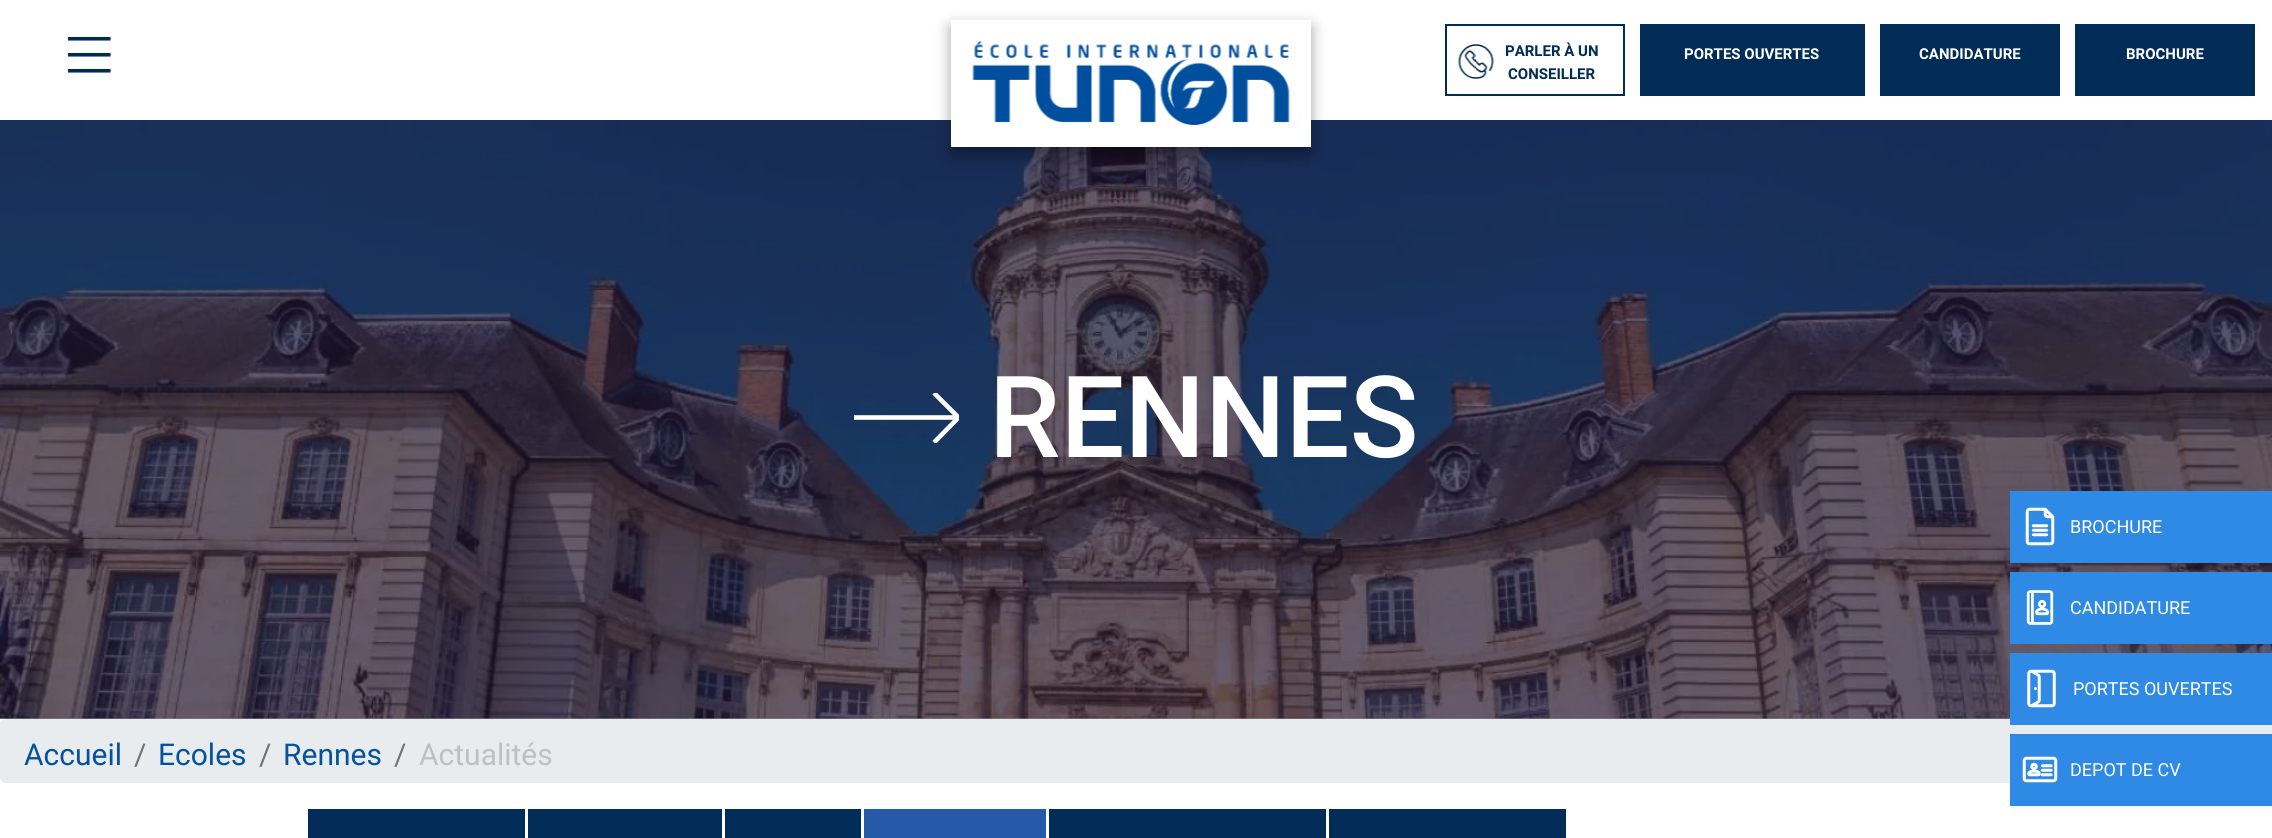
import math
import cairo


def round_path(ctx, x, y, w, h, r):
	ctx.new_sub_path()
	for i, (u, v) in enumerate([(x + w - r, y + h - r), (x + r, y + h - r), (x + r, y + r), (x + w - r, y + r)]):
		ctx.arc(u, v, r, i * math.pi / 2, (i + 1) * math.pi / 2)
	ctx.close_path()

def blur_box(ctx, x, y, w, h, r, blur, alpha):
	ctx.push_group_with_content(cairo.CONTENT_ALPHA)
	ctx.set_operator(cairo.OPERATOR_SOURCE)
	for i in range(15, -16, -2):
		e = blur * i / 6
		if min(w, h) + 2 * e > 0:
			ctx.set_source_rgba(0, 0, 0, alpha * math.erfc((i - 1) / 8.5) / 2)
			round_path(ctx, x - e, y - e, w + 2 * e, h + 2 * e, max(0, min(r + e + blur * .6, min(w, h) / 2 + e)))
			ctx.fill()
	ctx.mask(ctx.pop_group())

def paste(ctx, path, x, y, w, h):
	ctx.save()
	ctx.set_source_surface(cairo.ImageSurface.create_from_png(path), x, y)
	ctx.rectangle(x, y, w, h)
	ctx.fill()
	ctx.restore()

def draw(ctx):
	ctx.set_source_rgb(1, 1, 1)
	ctx.paint()
	ctx.new_path()
	ctx.move_to(69, 38)
	ctx.line_to(109.5, 38)
	ctx.line_to(109.5, 39.5)
	ctx.line_to(69, 39.5)
	ctx.close_path()
	ctx.move_to(69, 54)
	ctx.line_to(109.5, 54)
	ctx.line_to(109.5, 55.5)
	ctx.line_to(69, 55.5)
	ctx.close_path()
	ctx.move_to(69, 70)
	ctx.line_to(109.5, 70)
	ctx.line_to(109.5, 71.5)
	ctx.line_to(69, 71.5)
	ctx.close_path()
	ctx.set_source_rgb(0, 0.173, 0.329)
	ctx.set_line_width(2.1)
	ctx.stroke()
	ctx.set_source_rgb(0.569, 0.533, 0.612)
	ctx.rectangle(0, 718, 2010, 1)
	ctx.fill()
	paste(ctx, 'media/3.png', 0, 120, 2272, 599)
	ctx.set_source_rgb(0, 0, 0)
	blur_box(ctx, 951, 27, 360, 128, 0, 7.5, 0.36)
	ctx.set_source_rgb(1, 1, 1)
	ctx.rectangle(951, 20, 360, 127)
	ctx.fill()
	paste(ctx, 'media/1.png', 972, 41, 318, 84)
	ctx.rectangle(1446, 25, 178, 70)
	ctx.set_source_rgb(0, 0.173, 0.341)
	ctx.set_line_width(2)
	ctx.stroke()
	paste(ctx, 'media/2.png', 1458, 44, 36, 35)
	ctx.select_font_face('Roboto', cairo.FONT_SLANT_NORMAL, cairo.FONT_WEIGHT_BOLD)
	ctx.set_font_size(15)
	ctx.move_to(1505, 56)
	ctx.show_text('PARLER À UN')
	ctx.move_to(1508, 79)
	ctx.show_text('CONSEILLER')
	ctx.rectangle(1640, 24, 225, 72)
	ctx.fill()
	ctx.set_source_rgb(1, 1, 1)
	ctx.move_to(1684, 59)
	ctx.show_text('PORTES OUVERTES')
	ctx.set_source_rgb(0, 0.173, 0.341)
	ctx.rectangle(1880, 24, 180, 72)
	ctx.fill()
	ctx.set_source_rgb(1, 1, 1)
	ctx.move_to(1919, 59)
	ctx.show_text('CANDIDATURE')
	ctx.set_source_rgb(0, 0.173, 0.341)
	ctx.rectangle(2075, 24, 180, 72)
	ctx.fill()
	ctx.set_source_rgb(1, 1, 1)
	ctx.move_to(2126, 59)
	ctx.show_text('BROCHURE')
	ctx.select_font_face('Roboto Medium')
	ctx.set_font_size(113.5)
	ctx.move_to(989, 457)
	ctx.show_text('RENNES')
	ctx.save()
	ctx.rectangle(854, 393, 105, 50)
	ctx.clip()
	ctx.new_path()
	ctx.move_to(853.5, 417.5)
	ctx.line_to(958.5, 417.5)
	ctx.move_to(934, 393)
	ctx.line_to(958.5, 417.5)
	ctx.line_to(934, 442.5)
	ctx.set_line_width(4.6)
	ctx.stroke()
	ctx.restore()
	ctx.set_source_rgb(0.914, 0.925, 0.937)
	round_path(ctx, 0, 719, 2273, 64, 6)
	ctx.fill()
	ctx.select_font_face('Roboto')
	ctx.set_font_size(30)
	ctx.set_source_rgb(0.02, 0.322, 0.612)
	ctx.move_to(24, 765)
	ctx.show_text('Accueil')
	ctx.set_source_rgb(0.424, 0.459, 0.49)
	ctx.move_to(134, 765)
	ctx.show_text('/')
	ctx.set_source_rgb(0.02, 0.322, 0.612)
	ctx.move_to(158, 765)
	ctx.show_text('Ecoles')
	ctx.set_source_rgb(0.424, 0.459, 0.49)
	ctx.move_to(259, 765)
	ctx.show_text('/')
	ctx.set_source_rgb(0.02, 0.322, 0.612)
	ctx.move_to(283, 765)
	ctx.show_text('Rennes')
	ctx.set_source_rgb(0.424, 0.459, 0.49)
	ctx.move_to(394, 765)
	ctx.show_text('/')
	ctx.set_source_rgb(0.749, 0.749, 0.749)
	ctx.move_to(419, 765)
	ctx.show_text('Actualités')
	ctx.set_source_rgb(0, 0.173, 0.341)
	ctx.rectangle(308, 809, 217, 29)
	ctx.rectangle(528, 809, 194, 29)
	ctx.rectangle(725, 809, 136, 29)
	ctx.fill()
	ctx.set_source_rgb(0.141, 0.353, 0.659)
	ctx.rectangle(864, 809, 182, 29)
	ctx.fill()
	ctx.set_source_rgb(0, 0.173, 0.341)
	ctx.rectangle(1049, 809, 277, 29)
	ctx.rectangle(1329, 809, 237, 29)
	ctx.fill()
	ctx.set_source_rgb(0.18, 0.541, 0.894)
	ctx.rectangle(2010, 491, 262, 72)
	ctx.fill()
	paste(ctx, 'media/4.png', 2025, 507, 30, 39)
	ctx.set_font_size(18)
	ctx.set_source_rgb(1, 1, 1)
	ctx.move_to(2070, 533)
	ctx.show_text('BROCHURE')
	ctx.set_source_rgb(0.18, 0.541, 0.894)
	ctx.rectangle(2010, 572, 262, 72)
	ctx.fill()
	paste(ctx, 'media/5.png', 2026, 590, 28, 35)
	ctx.set_source_rgb(1, 1, 1)
	ctx.move_to(2070, 614)
	ctx.show_text('CANDIDATURE')
	ctx.set_source_rgb(0.18, 0.541, 0.894)
	ctx.rectangle(2010, 653, 262, 72)
	ctx.fill()
	paste(ctx, 'media/6.png', 2027, 669, 29, 39)
	ctx.set_source_rgb(1, 1, 1)
	ctx.move_to(2073, 695)
	ctx.show_text('PORTES OUVERTES')
	ctx.set_source_rgb(0.18, 0.541, 0.894)
	ctx.rectangle(2010, 734, 262, 72)
	ctx.fill()
	paste(ctx, 'media/7.png', 2022, 756, 36, 27)
	ctx.set_source_rgb(1, 1, 1)
	ctx.move_to(2070, 776)
	ctx.show_text('DEPOT DE CV')


surface = cairo.ImageSurface(cairo.FORMAT_RGB24, 2272, 838)
ctx = cairo.Context(surface)
options = cairo.FontOptions()
options.set_hint_metrics(cairo.HINT_METRICS_OFF)
options.set_hint_style(cairo.HINT_STYLE_NONE)
ctx.set_font_options(options)
ctx.set_miter_limit(4)
draw(ctx)
surface.write_to_png('image.png')
